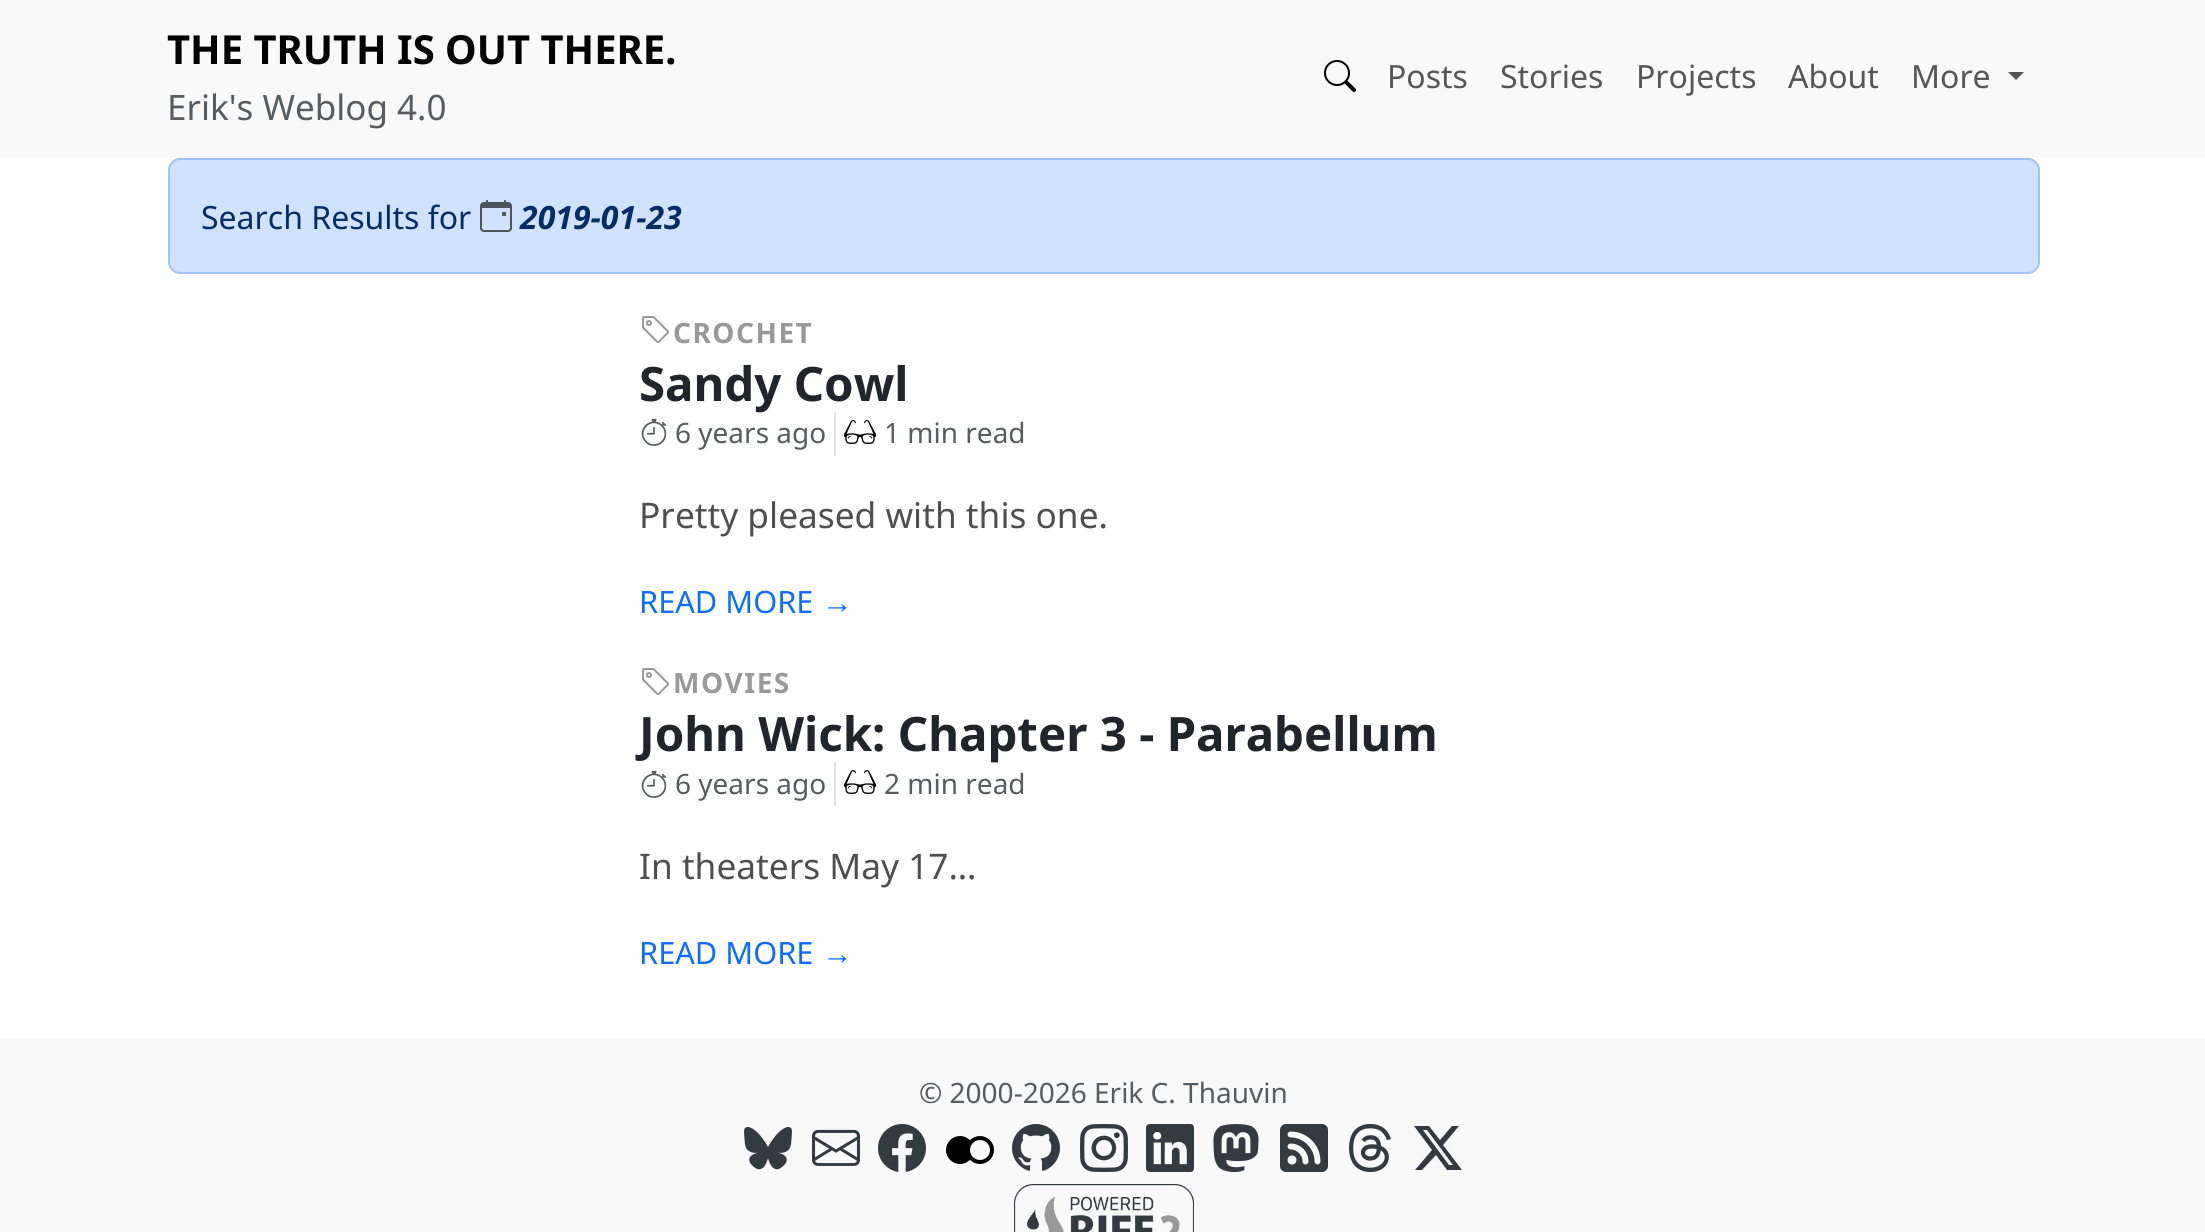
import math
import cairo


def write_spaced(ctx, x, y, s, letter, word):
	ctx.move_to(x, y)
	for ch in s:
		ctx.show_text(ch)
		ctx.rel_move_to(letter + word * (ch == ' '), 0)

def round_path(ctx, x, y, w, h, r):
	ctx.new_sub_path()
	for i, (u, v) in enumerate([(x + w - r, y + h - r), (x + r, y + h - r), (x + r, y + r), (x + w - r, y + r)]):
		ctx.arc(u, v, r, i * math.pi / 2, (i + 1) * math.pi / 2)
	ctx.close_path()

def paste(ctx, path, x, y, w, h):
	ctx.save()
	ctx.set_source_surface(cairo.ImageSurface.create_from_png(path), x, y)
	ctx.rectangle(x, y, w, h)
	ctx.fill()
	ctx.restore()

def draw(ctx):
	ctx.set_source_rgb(1, 1, 1)
	ctx.paint()
	ctx.set_source_rgb(0.973, 0.976, 0.98)
	ctx.rectangle(0, 0, 2205, 158)
	ctx.fill()
	ctx.select_font_face('Noto Sans', cairo.FONT_SLANT_NORMAL, cairo.FONT_WEIGHT_BOLD)
	ctx.set_font_size(40)
	ctx.set_source_rgb(0, 0, 0)
	ctx.move_to(167, 64)
	ctx.show_text('THE TRUTH IS OUT THERE.')
	ctx.select_font_face('Noto Sans')
	ctx.set_font_size(35)
	ctx.set_source_rgb(0.349, 0.361, 0.373)
	ctx.move_to(167, 120)
	ctx.show_text('Erik\'s Weblog 4.0')
	paste(ctx, 'media/1.png', 1324, 60, 32, 32)
	ctx.set_font_size(32)
	ctx.set_source_rgb(0.341, 0.341, 0.345)
	for x, y, s in [
		(1387, 88, 'Posts'),
		(1500, 88, 'Stories'),
		(1636, 88, 'Projects'),
		(1788, 88, 'About'),
		(1911, 88, 'More'),
	]:
		ctx.move_to(x, y)
		ctx.show_text(s)
	ctx.new_path()
	ctx.move_to(2008, 72)
	ctx.line_to(2024, 72)
	ctx.line_to(2016, 80)
	ctx.close_path()
	ctx.fill()
	ctx.set_source_rgb(0.812, 0.886, 1)
	round_path(ctx, 169, 159, 1870, 114, 11)
	ctx.fill_preserve()
	ctx.set_source_rgb(0.62, 0.773, 0.996)
	ctx.stroke()
	ctx.set_source_rgb(0.02, 0.173, 0.396)
	ctx.move_to(201, 229)
	ctx.show_text('Search Results for')
	paste(ctx, 'media/2.png', 480, 200, 32, 32)
	ctx.select_font_face('Noto Sans', cairo.FONT_SLANT_ITALIC, cairo.FONT_WEIGHT_BOLD)
	ctx.move_to(520, 229)
	ctx.show_text('2019-01-23')
	paste(ctx, 'media/3.png', 642, 316, 28, 28)
	ctx.select_font_face('Noto Sans', cairo.FONT_SLANT_NORMAL, cairo.FONT_WEIGHT_BOLD)
	ctx.set_font_size(28)
	ctx.set_source_rgb(0.6, 0.6, 0.6)
	write_spaced(ctx, 673, 343, 'CROCHET', 1.5, 0)
	ctx.set_font_size(47.4)
	ctx.set_source_rgb(0.129, 0.145, 0.161)
	ctx.move_to(639, 401)
	ctx.show_text('Sandy Cowl')
	paste(ctx, 'media/4.png', 641, 418, 26, 28)
	ctx.select_font_face('Noto Sans')
	ctx.set_font_size(28)
	ctx.set_source_rgb(0.349, 0.361, 0.373)
	ctx.move_to(675, 443)
	ctx.show_text('6 years ago')
	ctx.set_source_rgb(0.871, 0.886, 0.902)
	ctx.rectangle(834, 412, 2, 44)
	ctx.fill()
	paste(ctx, 'media/5.png', 844, 420, 32, 24)
	ctx.set_source_rgb(0.349, 0.361, 0.373)
	ctx.move_to(884, 443)
	ctx.show_text('1 min read')
	ctx.set_font_size(35.25)
	ctx.set_source_rgb(0.31, 0.31, 0.31)
	ctx.move_to(639, 528)
	ctx.show_text('Pretty pleased with this one.')
	ctx.set_font_size(30.75)
	ctx.set_source_rgb(0.051, 0.431, 0.992)
	ctx.move_to(639, 613)
	ctx.show_text('READ MORE')
	ctx.select_font_face('Liberation Sans')
	ctx.move_to(822, 613)
	ctx.show_text('→')
	paste(ctx, 'media/3.png', 642, 668, 28, 28)
	ctx.select_font_face('Noto Sans', cairo.FONT_SLANT_NORMAL, cairo.FONT_WEIGHT_BOLD)
	ctx.set_font_size(28)
	ctx.set_source_rgb(0.6, 0.6, 0.6)
	write_spaced(ctx, 673, 693, 'MOVIES', 1.5, 0)
	ctx.set_font_size(47.4)
	ctx.set_source_rgb(0.129, 0.145, 0.161)
	ctx.move_to(639, 751)
	ctx.show_text('John Wick: Chapter 3 - Parabellum')
	paste(ctx, 'media/4.png', 641, 770, 26, 28)
	ctx.select_font_face('Noto Sans')
	ctx.set_font_size(28)
	ctx.set_source_rgb(0.349, 0.361, 0.373)
	ctx.move_to(675, 794)
	ctx.show_text('6 years ago')
	ctx.set_source_rgb(0.871, 0.886, 0.902)
	ctx.rectangle(834, 762, 2, 44)
	ctx.fill()
	paste(ctx, 'media/5.png', 844, 770, 32, 24)
	ctx.set_source_rgb(0.349, 0.361, 0.373)
	ctx.move_to(884, 794)
	ctx.show_text('2 min read')
	ctx.set_font_size(35.25)
	ctx.set_source_rgb(0.31, 0.31, 0.31)
	ctx.move_to(639, 879)
	ctx.show_text('In theaters May 17…')
	ctx.set_font_size(30.75)
	ctx.set_source_rgb(0.051, 0.431, 0.992)
	ctx.move_to(639, 964)
	ctx.show_text('READ MORE')
	ctx.select_font_face('Liberation Sans')
	ctx.move_to(822, 964)
	ctx.show_text('→')
	ctx.set_source_rgb(0.973, 0.976, 0.98)
	ctx.rectangle(0, 1038, 2205, 194)
	ctx.fill()
	ctx.select_font_face('Noto Sans')
	ctx.set_font_size(28)
	ctx.set_source_rgb(0.349, 0.361, 0.373)
	ctx.move_to(919, 1103)
	ctx.show_text('© 2000-2026 Erik C. Thauvin')
	paste(ctx, 'media/6.png', 744, 1127, 48, 43)
	paste(ctx, 'media/7.png', 812, 1129, 48, 37)
	paste(ctx, 'media/8.png', 878, 1124, 48, 48)
	paste(ctx, 'media/9.png', 946, 1136, 48, 28)
	paste(ctx, 'media/10.png', 1012, 1124, 48, 47)
	paste(ctx, 'media/11.png', 1080, 1124, 48, 48)
	paste(ctx, 'media/12.png', 1146, 1124, 48, 48)
	paste(ctx, 'media/13.png', 1213, 1124, 46, 48)
	paste(ctx, 'media/14.png', 1280, 1124, 48, 48)
	paste(ctx, 'media/15.png', 1349, 1124, 42, 48)
	ctx.set_source_rgb(0.204, 0.227, 0.251)
	ctx.new_path()
	ctx.move_to(1452, 1126)
	ctx.line_to(1459, 1126)
	ctx.line_to(1443, 1145)
	ctx.line_to(1462, 1170)
	ctx.line_to(1447, 1170)
	ctx.line_to(1436, 1155)
	ctx.line_to(1422, 1170)
	ctx.line_to(1415, 1170)
	ctx.line_to(1432, 1150)
	ctx.line_to(1414, 1126)
	ctx.line_to(1429, 1126)
	ctx.line_to(1440, 1140)
	ctx.close_path()
	ctx.move_to(1449, 1165)
	ctx.line_to(1453, 1165)
	ctx.line_to(1427, 1130)
	ctx.line_to(1423, 1130)
	ctx.close_path()
	ctx.fill()
	paste(ctx, 'media/16.png', 1014, 1184, 180, 48)


surface = cairo.ImageSurface(cairo.FORMAT_RGB24, 2205, 1232)
ctx = cairo.Context(surface)
options = cairo.FontOptions()
options.set_hint_metrics(cairo.HINT_METRICS_OFF)
options.set_hint_style(cairo.HINT_STYLE_NONE)
ctx.set_font_options(options)
ctx.set_miter_limit(4)
draw(ctx)
surface.write_to_png('image.png')
